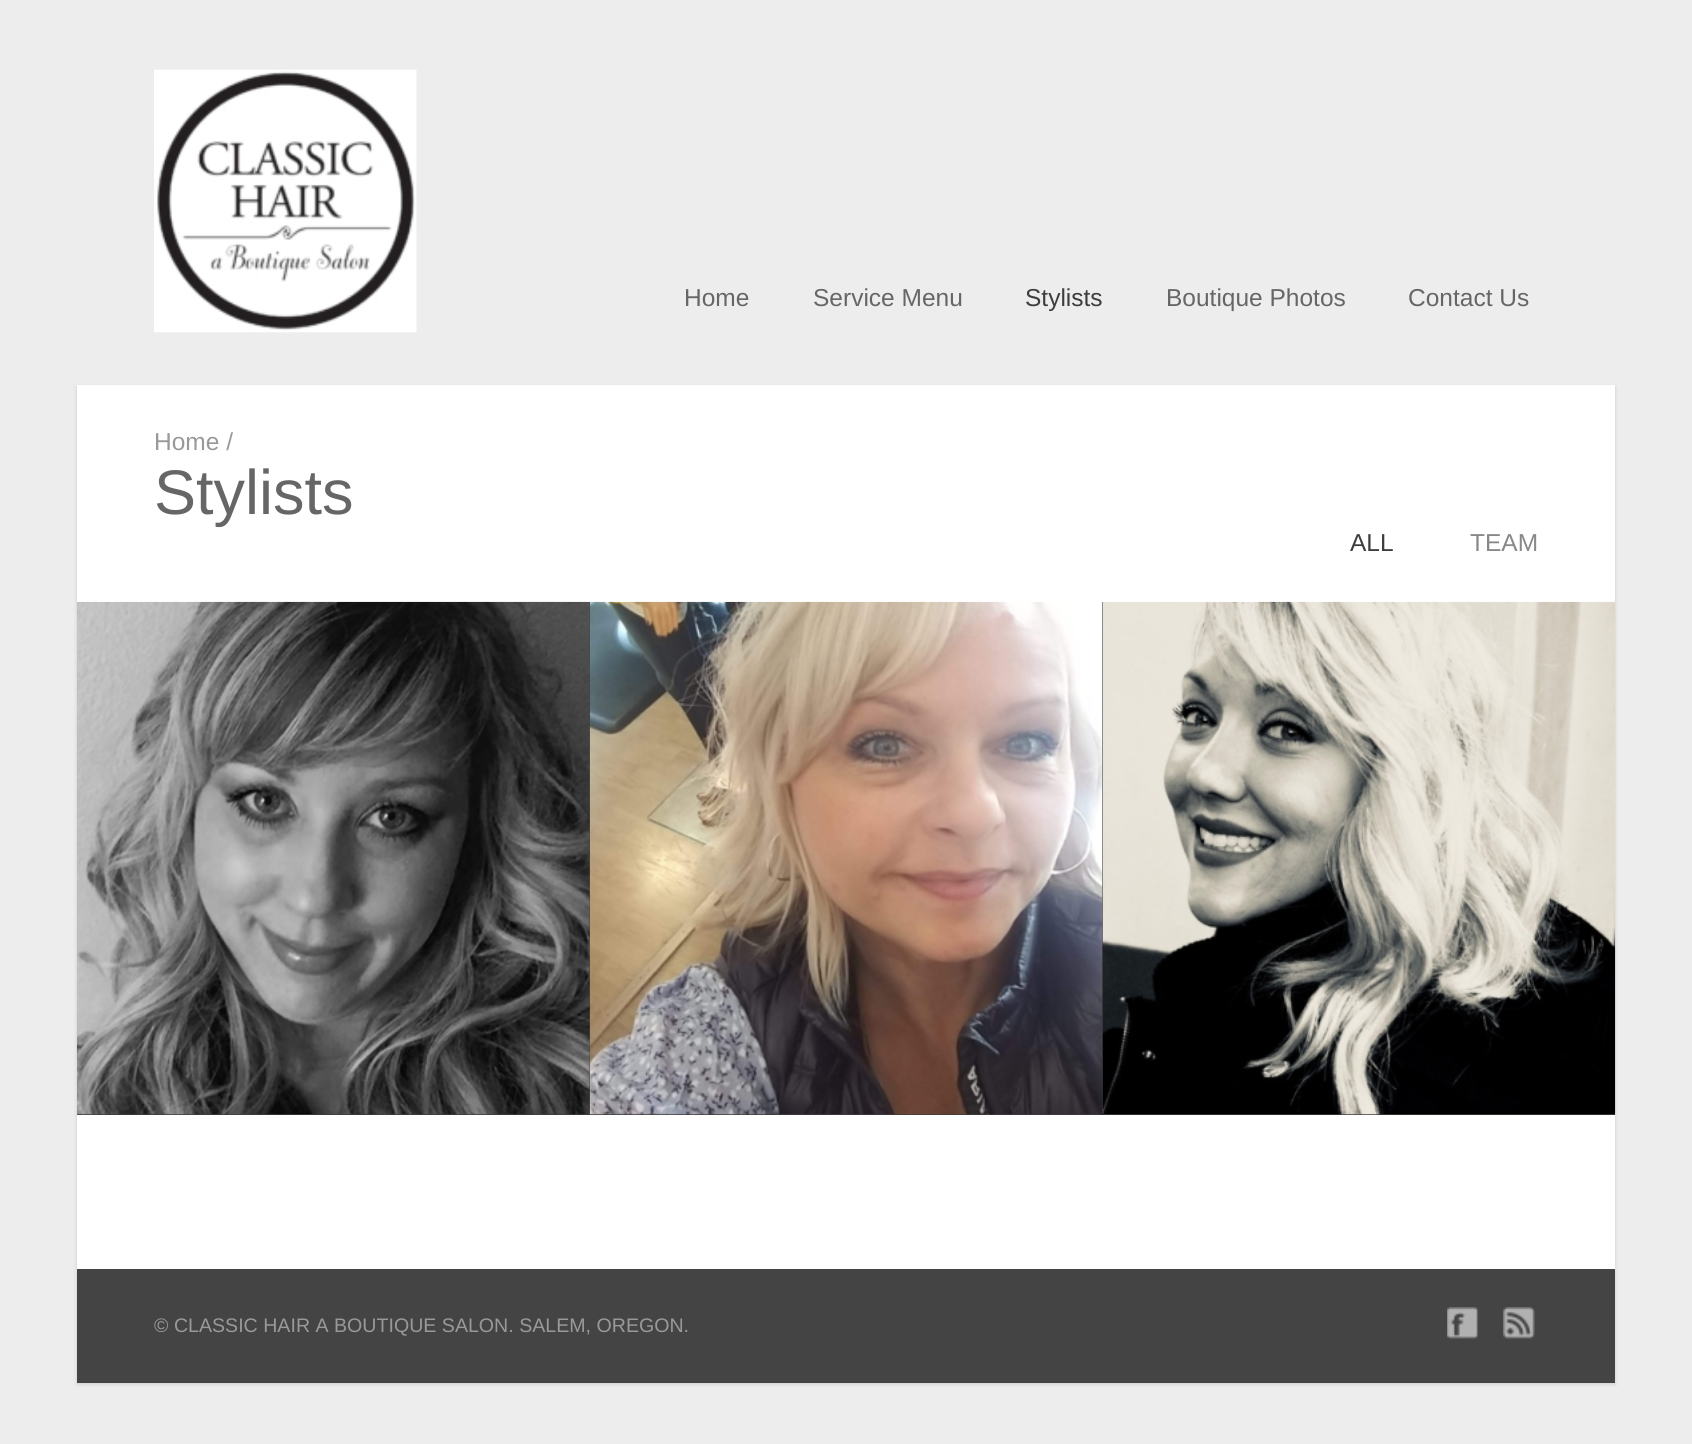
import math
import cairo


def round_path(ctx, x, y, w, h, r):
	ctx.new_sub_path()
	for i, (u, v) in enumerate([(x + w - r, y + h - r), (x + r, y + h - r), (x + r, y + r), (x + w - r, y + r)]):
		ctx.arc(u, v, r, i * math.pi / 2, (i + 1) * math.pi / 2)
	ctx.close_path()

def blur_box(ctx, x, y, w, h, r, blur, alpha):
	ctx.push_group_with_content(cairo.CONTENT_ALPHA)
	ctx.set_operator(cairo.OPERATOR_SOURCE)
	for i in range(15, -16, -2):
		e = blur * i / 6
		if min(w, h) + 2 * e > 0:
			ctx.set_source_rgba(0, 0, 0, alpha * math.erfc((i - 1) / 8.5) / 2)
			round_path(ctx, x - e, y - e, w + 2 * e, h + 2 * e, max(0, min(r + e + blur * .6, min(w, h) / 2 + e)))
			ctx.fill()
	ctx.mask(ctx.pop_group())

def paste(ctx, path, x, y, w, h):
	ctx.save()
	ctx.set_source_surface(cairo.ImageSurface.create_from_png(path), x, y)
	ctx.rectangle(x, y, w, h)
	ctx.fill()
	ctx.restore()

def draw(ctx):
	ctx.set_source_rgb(0.929, 0.929, 0.929)
	ctx.paint()
	paste(ctx, 'media/1.png', 154, 69, 263, 264)
	ctx.select_font_face('Liberation Sans')
	ctx.set_font_size(24.5)
	ctx.set_source_rgb(0.4, 0.4, 0.4)
	ctx.move_to(684, 306)
	ctx.show_text('Home')
	ctx.move_to(813, 306)
	ctx.show_text('Service Menu')
	ctx.set_source_rgb(0.239, 0.239, 0.239)
	ctx.move_to(1025, 306)
	ctx.show_text('Stylists')
	ctx.set_source_rgb(0.4, 0.4, 0.4)
	ctx.move_to(1166, 306)
	ctx.show_text('Boutique Photos')
	ctx.move_to(1408, 306)
	ctx.show_text('Contact Us')
	ctx.set_source_rgb(0, 0, 0)
	blur_box(ctx, 77, 387, 1538, 997, 0, 2, 0.15)
	ctx.set_source_rgb(1, 1, 1)
	ctx.rectangle(77, 385, 1538, 884)
	ctx.fill()
	ctx.set_source_rgb(0.6, 0.6, 0.6)
	ctx.move_to(154, 450)
	ctx.show_text('Home /')
	ctx.set_font_size(63)
	ctx.set_source_rgb(0.4, 0.4, 0.4)
	ctx.move_to(154, 514)
	ctx.show_text('Stylists')
	ctx.set_font_size(24.5)
	ctx.set_source_rgb(0.239, 0.239, 0.239)
	ctx.move_to(1350, 551)
	ctx.show_text('ALL')
	ctx.set_source_rgb(0.533, 0.533, 0.533)
	ctx.move_to(1470, 551)
	ctx.show_text('TEAM')
	ctx.set_source_rgb(0.239, 0.239, 0.239)
	ctx.rectangle(77, 602, 1026, 513)
	ctx.fill()
	paste(ctx, 'media/2.png', 77, 601, 513, 514)
	paste(ctx, 'media/3.png', 589, 601, 514, 514)
	ctx.rectangle(1103, 1114, 512, 1)
	ctx.fill()
	paste(ctx, 'media/4.png', 1102, 601, 514, 514)
	ctx.set_source_rgb(0.267, 0.267, 0.267)
	ctx.rectangle(77, 1269, 1538, 114)
	ctx.fill()
	ctx.set_font_size(19.6)
	ctx.set_source_rgb(0.6, 0.6, 0.6)
	ctx.move_to(154, 1332)
	ctx.show_text('© CLASSIC HAIR A BOUTIQUE SALON. SALEM, OREGON.')
	paste(ctx, 'media/5.png', 1447, 1307, 32, 32)
	paste(ctx, 'media/6.png', 1503, 1307, 32, 32)


surface = cairo.ImageSurface(cairo.FORMAT_RGB24, 1692, 1444)
ctx = cairo.Context(surface)
options = cairo.FontOptions()
options.set_hint_metrics(cairo.HINT_METRICS_OFF)
options.set_hint_style(cairo.HINT_STYLE_NONE)
ctx.set_font_options(options)
ctx.set_miter_limit(4)
draw(ctx)
surface.write_to_png('image.png')
